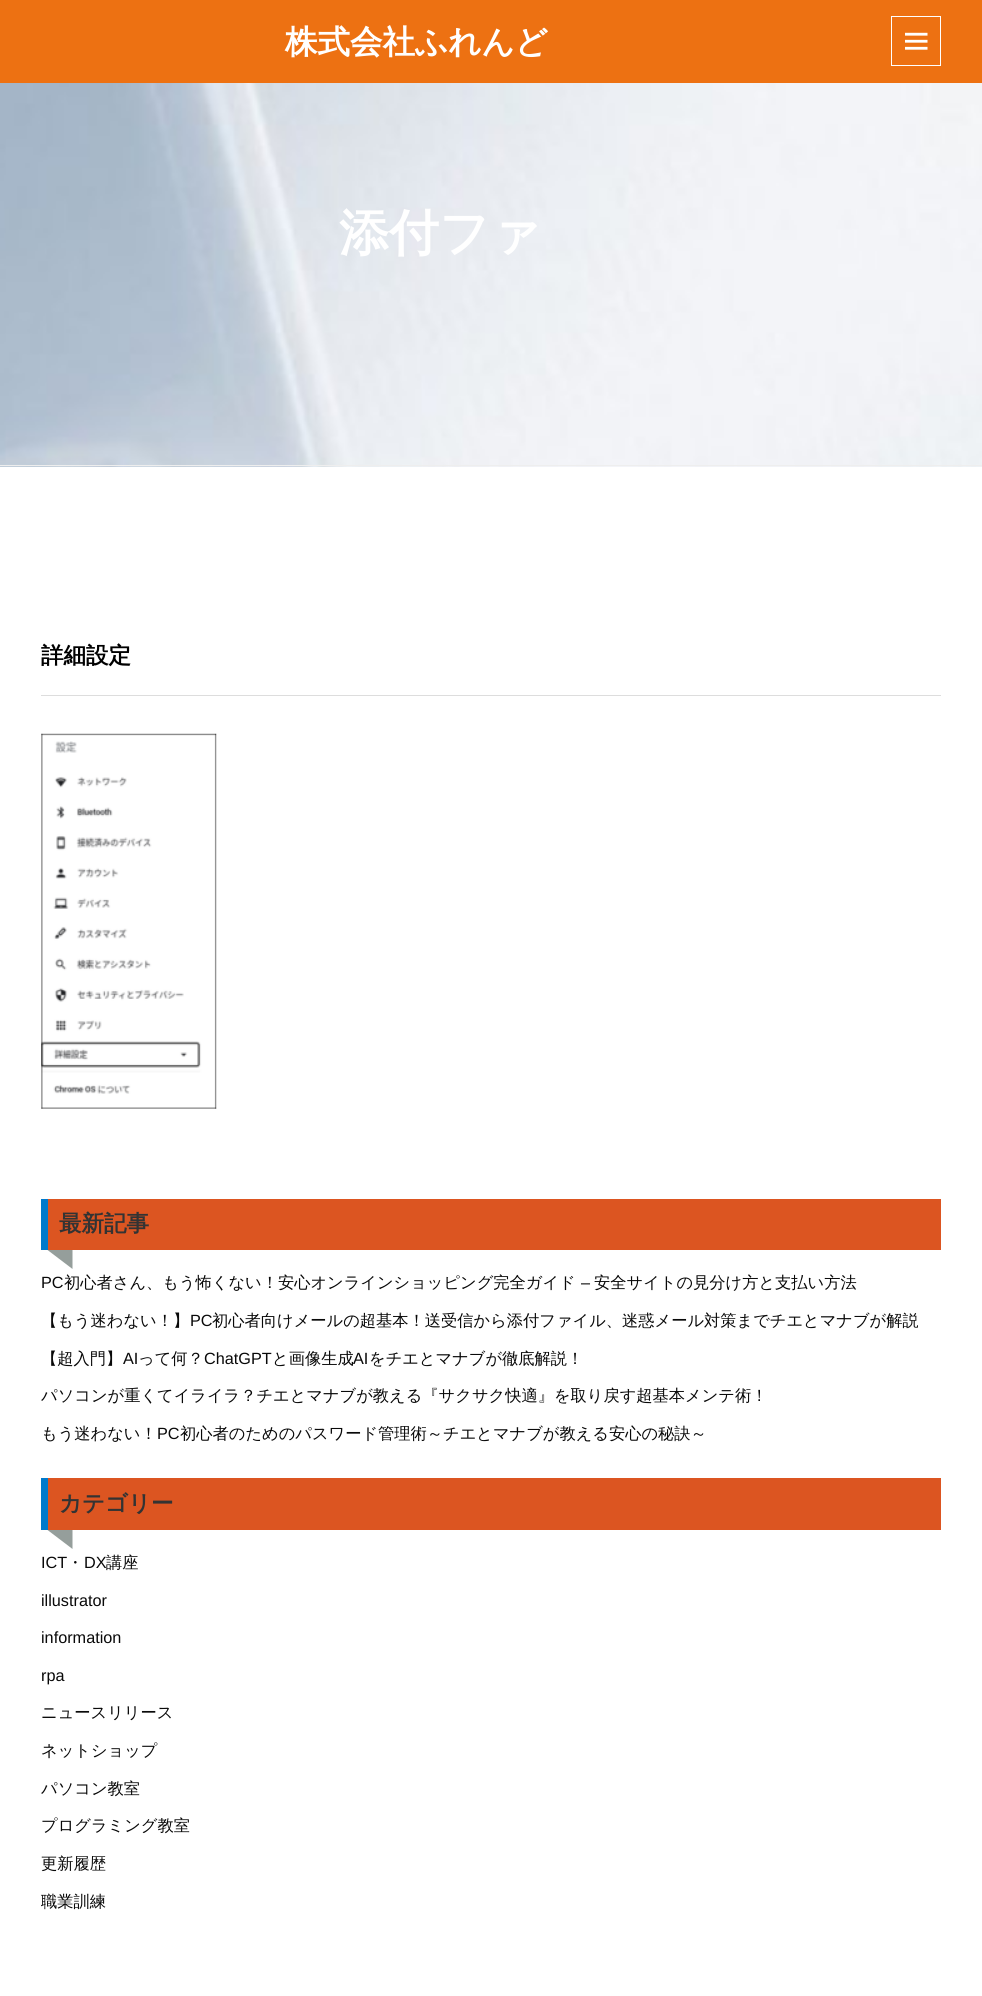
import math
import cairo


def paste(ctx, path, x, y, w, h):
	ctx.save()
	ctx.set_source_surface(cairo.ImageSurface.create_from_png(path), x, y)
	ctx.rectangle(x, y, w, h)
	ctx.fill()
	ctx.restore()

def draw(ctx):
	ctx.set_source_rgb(1, 1, 1)
	ctx.paint()
	ctx.set_source_rgb(0.929, 0.443, 0.071)
	ctx.rectangle(0, 0, 982, 83)
	ctx.fill()
	ctx.select_font_face('WenQuanYi Zen Hei', cairo.FONT_SLANT_NORMAL, cairo.FONT_WEIGHT_BOLD)
	ctx.set_font_size(32.5)
	ctx.set_source_rgb(1, 1, 1)
	ctx.move_to(285, 53)
	ctx.show_text('株式会社ふれんど')
	ctx.rectangle(891.5, 16.5, 49, 49)
	ctx.set_line_width(1)
	ctx.stroke()
	paste(ctx, 'media/1.png', 905, 32, 23, 18)
	paste(ctx, 'media/2.png', 0, 83, 982, 384)
	ctx.set_source_rgb(0.933, 0.933, 0.933)
	ctx.rectangle(0, 465, 982, 1)
	ctx.fill()
	ctx.set_font_size(50)
	ctx.set_source_rgb(1, 1, 1)
	ctx.move_to(339, 250)
	ctx.show_text('添付ファ')
	ctx.set_font_size(22.5)
	ctx.set_source_rgb(0, 0, 0)
	ctx.move_to(41, 663)
	ctx.show_text('詳細設定')
	ctx.set_source_rgb(0.867, 0.867, 0.867)
	ctx.rectangle(41, 695, 900, 1)
	ctx.fill()
	paste(ctx, 'media/3.png', 41, 733, 176, 376)
	ctx.set_source_rgb(0.863, 0.333, 0.129)
	ctx.rectangle(48, 1199, 893, 51)
	ctx.fill()
	ctx.set_source_rgb(0, 0.478, 0.8)
	ctx.rectangle(41, 1199, 7, 51)
	ctx.fill()
	ctx.set_source_rgb(0.2, 0.2, 0.2)
	ctx.move_to(59, 1231)
	ctx.show_text('最新記事')
	ctx.set_source_rgb(0.584, 0.62, 0.608)
	ctx.new_path()
	ctx.move_to(72.5, 1250)
	ctx.line_to(72.5, 1269)
	ctx.line_to(47.5, 1250)
	ctx.close_path()
	ctx.fill()
	ctx.select_font_face('Liberation Sans')
	ctx.set_font_size(16.25)
	ctx.set_source_rgb(0.039, 0.039, 0.039)
	ctx.move_to(41, 1288)
	ctx.show_text('PC')
	ctx.select_font_face('WenQuanYi Zen Hei Medium')
	ctx.move_to(64, 1288)
	ctx.show_text('初心者さん、もう怖くない！安心オンラインショッピング完全ガイド')
	ctx.select_font_face('Liberation Sans')
	ctx.move_to(581, 1288)
	ctx.show_text('–')
	ctx.select_font_face('WenQuanYi Zen Hei Medium')
	ctx.move_to(594, 1288)
	ctx.show_text('安全サイトの見分け方と支払い方法')
	ctx.move_to(41, 1326)
	ctx.show_text('【もう迷わない！】')
	ctx.select_font_face('Liberation Sans')
	ctx.move_to(190, 1326)
	ctx.show_text('PC')
	ctx.select_font_face('WenQuanYi Zen Hei Medium')
	ctx.move_to(212, 1326)
	ctx.show_text('初心者向けメールの超基本！送受信から添付ファイル、迷惑メール対策までチエとマナブが解説')
	ctx.move_to(41, 1364)
	ctx.show_text('【超入門】')
	ctx.select_font_face('Liberation Sans')
	ctx.move_to(123, 1364)
	ctx.show_text('AI')
	ctx.select_font_face('WenQuanYi Zen Hei Medium')
	ctx.move_to(138, 1364)
	ctx.show_text('って何？')
	ctx.select_font_face('Liberation Sans')
	ctx.move_to(204, 1364)
	ctx.show_text('ChatGPT')
	ctx.select_font_face('WenQuanYi Zen Hei Medium')
	ctx.move_to(272, 1364)
	ctx.show_text('と画像生成')
	ctx.select_font_face('Liberation Sans')
	ctx.move_to(353, 1364)
	ctx.show_text('AI')
	ctx.select_font_face('WenQuanYi Zen Hei Medium')
	for x, y, s in [
		(369, 1364, 'をチエとマナブが徹底解説！'),
		(41, 1401, 'パソコンが重くてイライラ？チエとマナブが教える『サクサク快適』を取り戻す超基本メンテ術！'),
		(41, 1439, 'もう迷わない！'),
	]:
		ctx.move_to(x, y)
		ctx.show_text(s)
	ctx.select_font_face('Liberation Sans')
	ctx.move_to(157, 1439)
	ctx.show_text('PC')
	ctx.select_font_face('WenQuanYi Zen Hei Medium')
	ctx.move_to(180, 1439)
	ctx.show_text('初心者のためのパスワード管理術～チエとマナブが教える安心の秘訣～')
	ctx.set_source_rgb(0.863, 0.333, 0.129)
	ctx.rectangle(48, 1478, 893, 52)
	ctx.fill()
	ctx.set_source_rgb(0, 0.478, 0.8)
	ctx.rectangle(41, 1478, 7, 52)
	ctx.fill()
	ctx.select_font_face('WenQuanYi Zen Hei', cairo.FONT_SLANT_NORMAL, cairo.FONT_WEIGHT_BOLD)
	ctx.set_font_size(22.5)
	ctx.set_source_rgb(0.2, 0.2, 0.2)
	ctx.move_to(59, 1511)
	ctx.show_text('カテゴリー')
	ctx.set_source_rgb(0.584, 0.62, 0.608)
	ctx.new_path()
	ctx.move_to(72.5, 1530)
	ctx.line_to(72.5, 1549)
	ctx.line_to(47.5, 1530)
	ctx.close_path()
	ctx.fill()
	ctx.select_font_face('Liberation Sans')
	ctx.set_font_size(16.25)
	ctx.set_source_rgb(0.039, 0.039, 0.039)
	ctx.move_to(41, 1568)
	ctx.show_text('ICT')
	ctx.select_font_face('WenQuanYi Zen Hei Medium')
	ctx.move_to(67, 1568)
	ctx.show_text('・')
	ctx.select_font_face('Liberation Sans')
	ctx.move_to(84, 1568)
	ctx.show_text('DX')
	ctx.select_font_face('WenQuanYi Zen Hei Medium')
	ctx.move_to(106, 1568)
	ctx.show_text('講座')
	ctx.select_font_face('Liberation Sans')
	for x, y, s in [
		(41, 1606, 'illustrator'),
		(41, 1643, 'information'),
		(41, 1681, 'rpa'),
	]:
		ctx.move_to(x, y)
		ctx.show_text(s)
	ctx.select_font_face('WenQuanYi Zen Hei Medium')
	for x, y, s in [
		(41, 1718, 'ニュースリリース'),
		(41, 1756, 'ネットショップ'),
		(41, 1794, 'パソコン教室'),
		(41, 1831, 'プログラミング教室'),
		(41, 1869, '更新履歴'),
		(41, 1907, '職業訓練'),
	]:
		ctx.move_to(x, y)
		ctx.show_text(s)


surface = cairo.ImageSurface(cairo.FORMAT_RGB24, 982, 1996)
ctx = cairo.Context(surface)
options = cairo.FontOptions()
options.set_hint_metrics(cairo.HINT_METRICS_OFF)
options.set_hint_style(cairo.HINT_STYLE_NONE)
ctx.set_font_options(options)
ctx.set_miter_limit(4)
draw(ctx)
surface.write_to_png('image.png')
